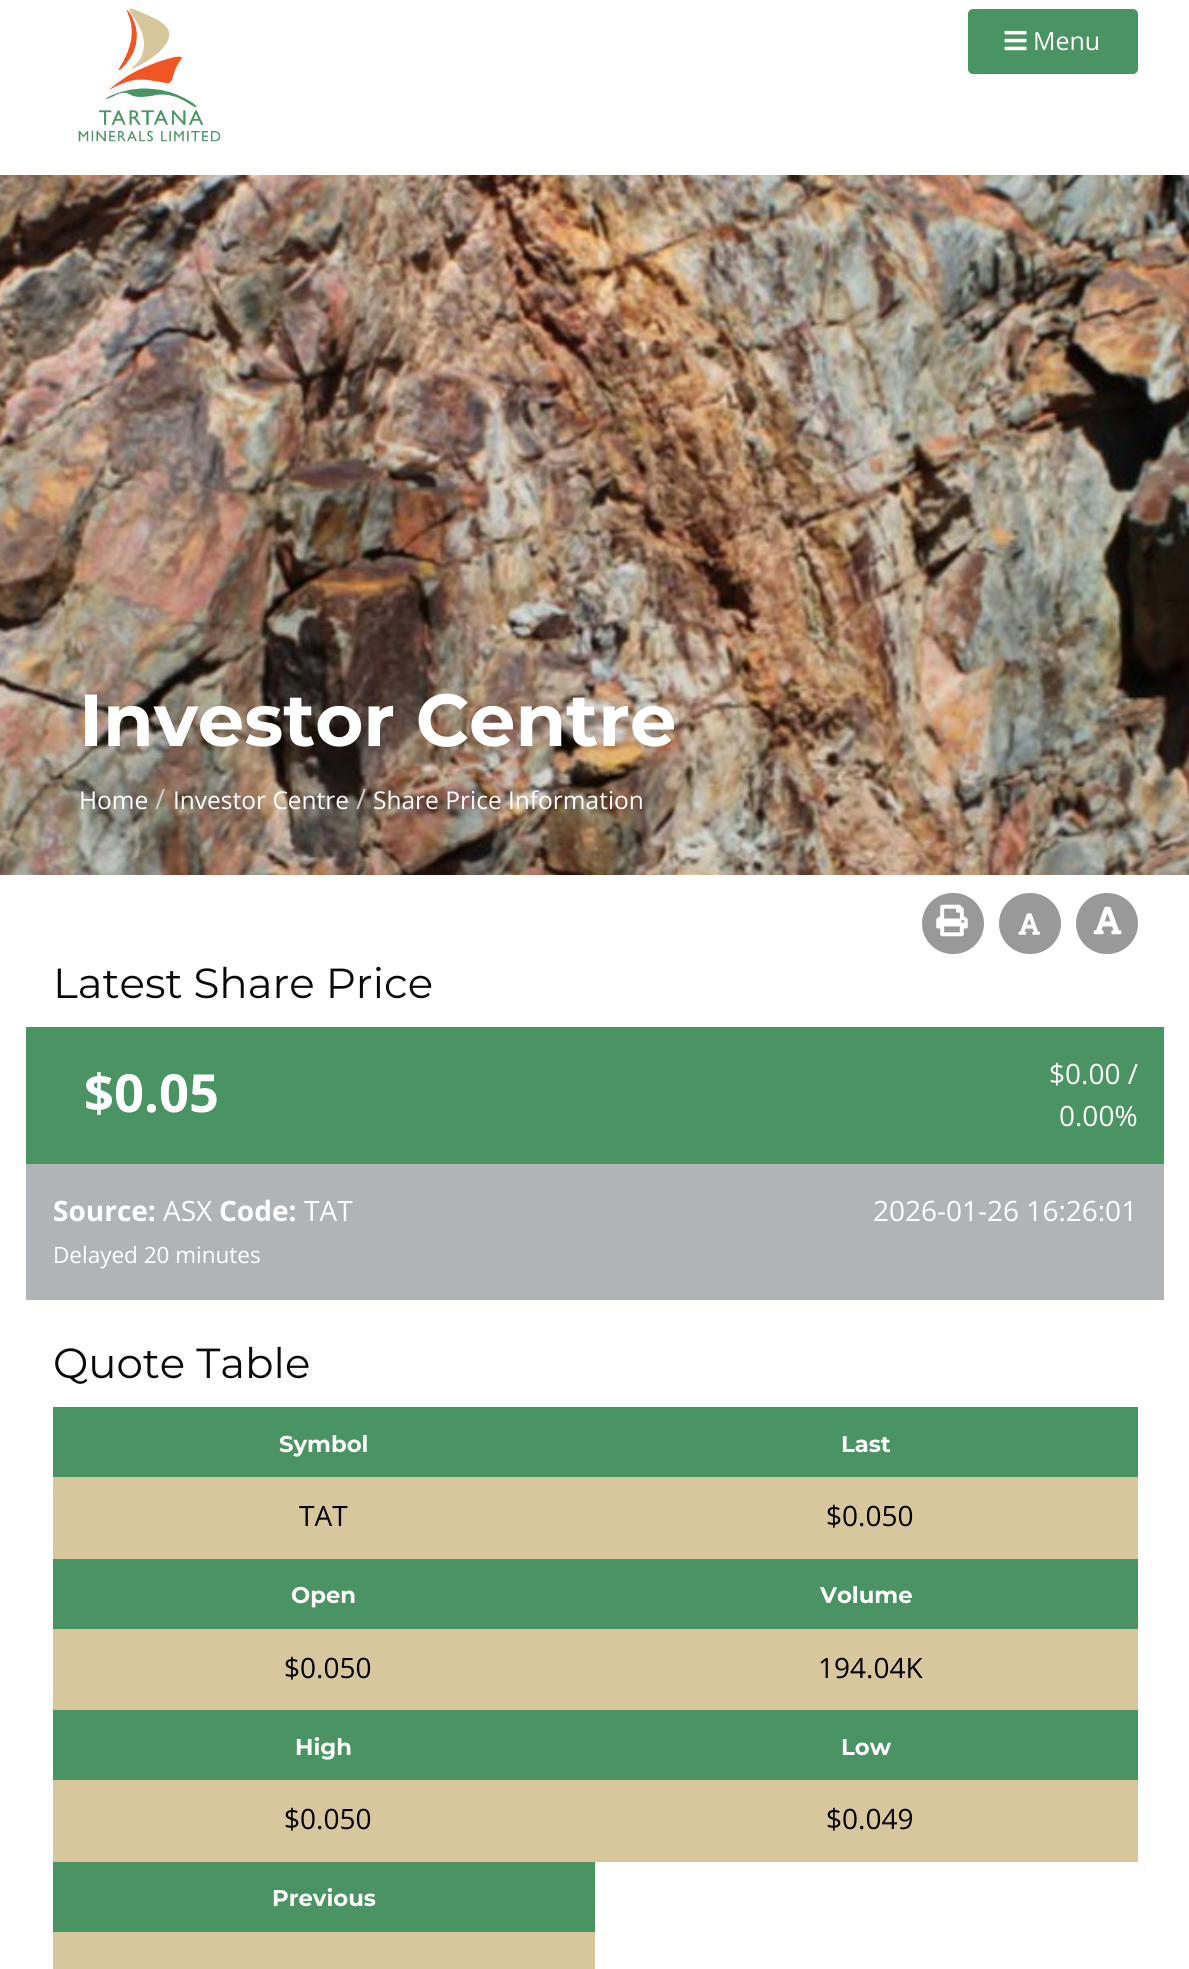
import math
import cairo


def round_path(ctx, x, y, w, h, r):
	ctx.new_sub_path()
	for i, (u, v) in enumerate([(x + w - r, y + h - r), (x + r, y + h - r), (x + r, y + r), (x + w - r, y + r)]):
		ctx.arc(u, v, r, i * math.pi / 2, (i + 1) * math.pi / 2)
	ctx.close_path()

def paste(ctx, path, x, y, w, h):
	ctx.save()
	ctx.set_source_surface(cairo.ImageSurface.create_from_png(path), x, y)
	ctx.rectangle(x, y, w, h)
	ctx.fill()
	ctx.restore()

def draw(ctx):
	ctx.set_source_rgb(1, 1, 1)
	ctx.paint()
	paste(ctx, 'media/1.png', 78, 8, 143, 138)
	ctx.set_source_rgb(0.286, 0.58, 0.384)
	round_path(ctx, 968, 9, 170, 65, 5)
	ctx.fill()
	paste(ctx, 'media/2.png', 1004, 30, 23, 21)
	ctx.select_font_face('Open Sans')
	ctx.set_font_size(25)
	ctx.set_source_rgb(1, 1, 1)
	ctx.move_to(1033, 50)
	ctx.show_text('Menu')
	paste(ctx, 'media/3.png', 0, 175, 1189, 700)
	ctx.select_font_face('Montserrat', cairo.FONT_SLANT_NORMAL, cairo.FONT_WEIGHT_BOLD)
	ctx.set_font_size(73.5)
	ctx.move_to(79, 746)
	ctx.show_text('Investor Centre')
	ctx.select_font_face('Open Sans')
	ctx.set_font_size(24.5)
	ctx.move_to(79, 809)
	ctx.show_text('Home')
	ctx.set_font_size(28)
	ctx.set_source_rgb(0.8, 0.8, 0.8)
	ctx.move_to(155, 809)
	ctx.show_text('/')
	ctx.set_font_size(24.5)
	ctx.set_source_rgb(1, 1, 1)
	ctx.move_to(173, 809)
	ctx.show_text('Investor Centre')
	ctx.set_font_size(28)
	ctx.set_source_rgb(0.8, 0.8, 0.8)
	ctx.move_to(356, 809)
	ctx.show_text('/')
	ctx.set_font_size(24.5)
	ctx.set_source_rgb(1, 1, 1)
	ctx.move_to(373, 809)
	ctx.show_text('Share Price Information')
	ctx.set_source_rgb(0.6, 0.6, 0.6)
	round_path(ctx, 922, 893, 62, 61, 30.5)
	ctx.fill()
	paste(ctx, 'media/4.png', 936, 904, 32, 33)
	round_path(ctx, 999, 893, 62, 61, 30.5)
	ctx.fill()
	paste(ctx, 'media/5.png', 1018, 913, 22, 22)
	round_path(ctx, 1076, 893, 62, 61, 30.5)
	ctx.fill()
	paste(ctx, 'media/6.png', 1093, 906, 29, 29)
	ctx.select_font_face('Montserrat')
	ctx.set_font_size(42)
	ctx.set_source_rgb(0.039, 0.039, 0.039)
	ctx.move_to(53, 998)
	ctx.show_text('Latest Share Price')
	ctx.set_source_rgb(0.286, 0.58, 0.384)
	ctx.rectangle(26, 1027, 1138, 137)
	ctx.fill()
	ctx.select_font_face('Open Sans', cairo.FONT_SLANT_NORMAL, cairo.FONT_WEIGHT_BOLD)
	ctx.set_font_size(52.5)
	ctx.set_source_rgb(1, 1, 1)
	ctx.move_to(84, 1112)
	ctx.show_text('$0.05')
	ctx.select_font_face('Open Sans')
	ctx.set_font_size(28)
	ctx.move_to(1049, 1084)
	ctx.show_text('$0.00 /')
	ctx.move_to(1059, 1126)
	ctx.show_text('0.00%')
	ctx.set_source_rgb(0.69, 0.706, 0.718)
	ctx.rectangle(26, 1164, 1138, 136)
	ctx.fill()
	ctx.select_font_face('Open Sans', cairo.FONT_SLANT_NORMAL, cairo.FONT_WEIGHT_BOLD)
	ctx.set_source_rgb(1, 1, 1)
	ctx.move_to(53, 1221)
	ctx.show_text('Source:')
	ctx.select_font_face('Open Sans')
	ctx.move_to(163, 1221)
	ctx.show_text('ASX')
	ctx.select_font_face('Open Sans', cairo.FONT_SLANT_NORMAL, cairo.FONT_WEIGHT_BOLD)
	ctx.move_to(219, 1221)
	ctx.show_text('Code:')
	ctx.select_font_face('Open Sans')
	ctx.move_to(304, 1221)
	ctx.show_text('TAT')
	ctx.set_font_size(22.5)
	ctx.move_to(53, 1263)
	ctx.show_text('Delayed 20 minutes')
	ctx.set_font_size(28)
	ctx.move_to(873, 1221)
	ctx.show_text('2026-01-26 16:26:01')
	ctx.select_font_face('Montserrat')
	ctx.set_font_size(42)
	ctx.set_source_rgb(0.039, 0.039, 0.039)
	ctx.move_to(53, 1378)
	ctx.show_text('Quote Table')
	ctx.set_source_rgb(0.286, 0.58, 0.384)
	ctx.rectangle(53, 1407, 1085, 70)
	ctx.fill()
	ctx.select_font_face('Montserrat', cairo.FONT_SLANT_NORMAL, cairo.FONT_WEIGHT_BOLD)
	ctx.set_font_size(22.75)
	ctx.set_source_rgb(1, 1, 1)
	ctx.move_to(279, 1452)
	ctx.show_text('Symbol')
	ctx.set_source_rgb(0.847, 0.776, 0.616)
	ctx.rectangle(53, 1477, 542, 82)
	ctx.fill()
	ctx.select_font_face('Open Sans')
	ctx.set_font_size(28)
	ctx.set_source_rgb(0, 0, 0)
	ctx.move_to(299, 1526)
	ctx.show_text('TAT')
	ctx.select_font_face('Montserrat', cairo.FONT_SLANT_NORMAL, cairo.FONT_WEIGHT_BOLD)
	ctx.set_font_size(22.75)
	ctx.set_source_rgb(1, 1, 1)
	ctx.move_to(841, 1452)
	ctx.show_text('Last')
	ctx.set_source_rgb(0.847, 0.776, 0.616)
	ctx.rectangle(595, 1477, 543, 82)
	ctx.fill()
	ctx.select_font_face('Open Sans')
	ctx.set_font_size(28)
	ctx.set_source_rgb(0, 0, 0)
	ctx.move_to(826, 1526)
	ctx.show_text('$0.050')
	ctx.set_source_rgb(0.286, 0.58, 0.384)
	ctx.rectangle(53, 1559, 542, 70)
	ctx.fill()
	ctx.select_font_face('Montserrat', cairo.FONT_SLANT_NORMAL, cairo.FONT_WEIGHT_BOLD)
	ctx.set_font_size(22.75)
	ctx.set_source_rgb(1, 1, 1)
	ctx.move_to(291, 1603)
	ctx.show_text('Open')
	ctx.set_source_rgb(0.847, 0.776, 0.616)
	ctx.rectangle(53, 1629, 1085, 81)
	ctx.fill()
	ctx.select_font_face('Open Sans')
	ctx.set_font_size(28)
	ctx.set_source_rgb(0, 0, 0)
	ctx.move_to(284, 1678)
	ctx.show_text('$0.050')
	ctx.set_source_rgb(0.286, 0.58, 0.384)
	ctx.rectangle(595, 1559, 543, 70)
	ctx.fill()
	ctx.select_font_face('Montserrat', cairo.FONT_SLANT_NORMAL, cairo.FONT_WEIGHT_BOLD)
	ctx.set_font_size(22.75)
	ctx.set_source_rgb(1, 1, 1)
	ctx.move_to(820, 1603)
	ctx.show_text('Volume')
	ctx.select_font_face('Open Sans')
	ctx.set_font_size(28)
	ctx.set_source_rgb(0, 0, 0)
	ctx.move_to(818, 1678)
	ctx.show_text('194.04K')
	ctx.set_source_rgb(0.286, 0.58, 0.384)
	ctx.rectangle(53, 1710, 1085, 70)
	ctx.fill()
	ctx.select_font_face('Montserrat', cairo.FONT_SLANT_NORMAL, cairo.FONT_WEIGHT_BOLD)
	ctx.set_font_size(22.75)
	ctx.set_source_rgb(1, 1, 1)
	ctx.move_to(295, 1755)
	ctx.show_text('High')
	ctx.set_source_rgb(0.847, 0.776, 0.616)
	ctx.rectangle(53, 1780, 1085, 82)
	ctx.fill()
	ctx.select_font_face('Open Sans')
	ctx.set_font_size(28)
	ctx.set_source_rgb(0, 0, 0)
	ctx.move_to(284, 1829)
	ctx.show_text('$0.050')
	ctx.select_font_face('Montserrat', cairo.FONT_SLANT_NORMAL, cairo.FONT_WEIGHT_BOLD)
	ctx.set_font_size(22.75)
	ctx.set_source_rgb(1, 1, 1)
	ctx.move_to(841, 1755)
	ctx.show_text('Low')
	ctx.select_font_face('Open Sans')
	ctx.set_font_size(28)
	ctx.set_source_rgb(0, 0, 0)
	ctx.move_to(826, 1829)
	ctx.show_text('$0.049')
	ctx.set_source_rgb(0.286, 0.58, 0.384)
	ctx.rectangle(53, 1862, 542, 70)
	ctx.fill()
	ctx.select_font_face('Montserrat', cairo.FONT_SLANT_NORMAL, cairo.FONT_WEIGHT_BOLD)
	ctx.set_font_size(22.75)
	ctx.set_source_rgb(1, 1, 1)
	ctx.move_to(272, 1906)
	ctx.show_text('Previous')
	ctx.set_source_rgb(0.847, 0.776, 0.616)
	ctx.rectangle(53, 1932, 542, 37)
	ctx.fill()


surface = cairo.ImageSurface(cairo.FORMAT_RGB24, 1189, 1969)
ctx = cairo.Context(surface)
options = cairo.FontOptions()
options.set_hint_metrics(cairo.HINT_METRICS_OFF)
options.set_hint_style(cairo.HINT_STYLE_NONE)
ctx.set_font_options(options)
ctx.set_miter_limit(4)
draw(ctx)
surface.write_to_png('image.png')
